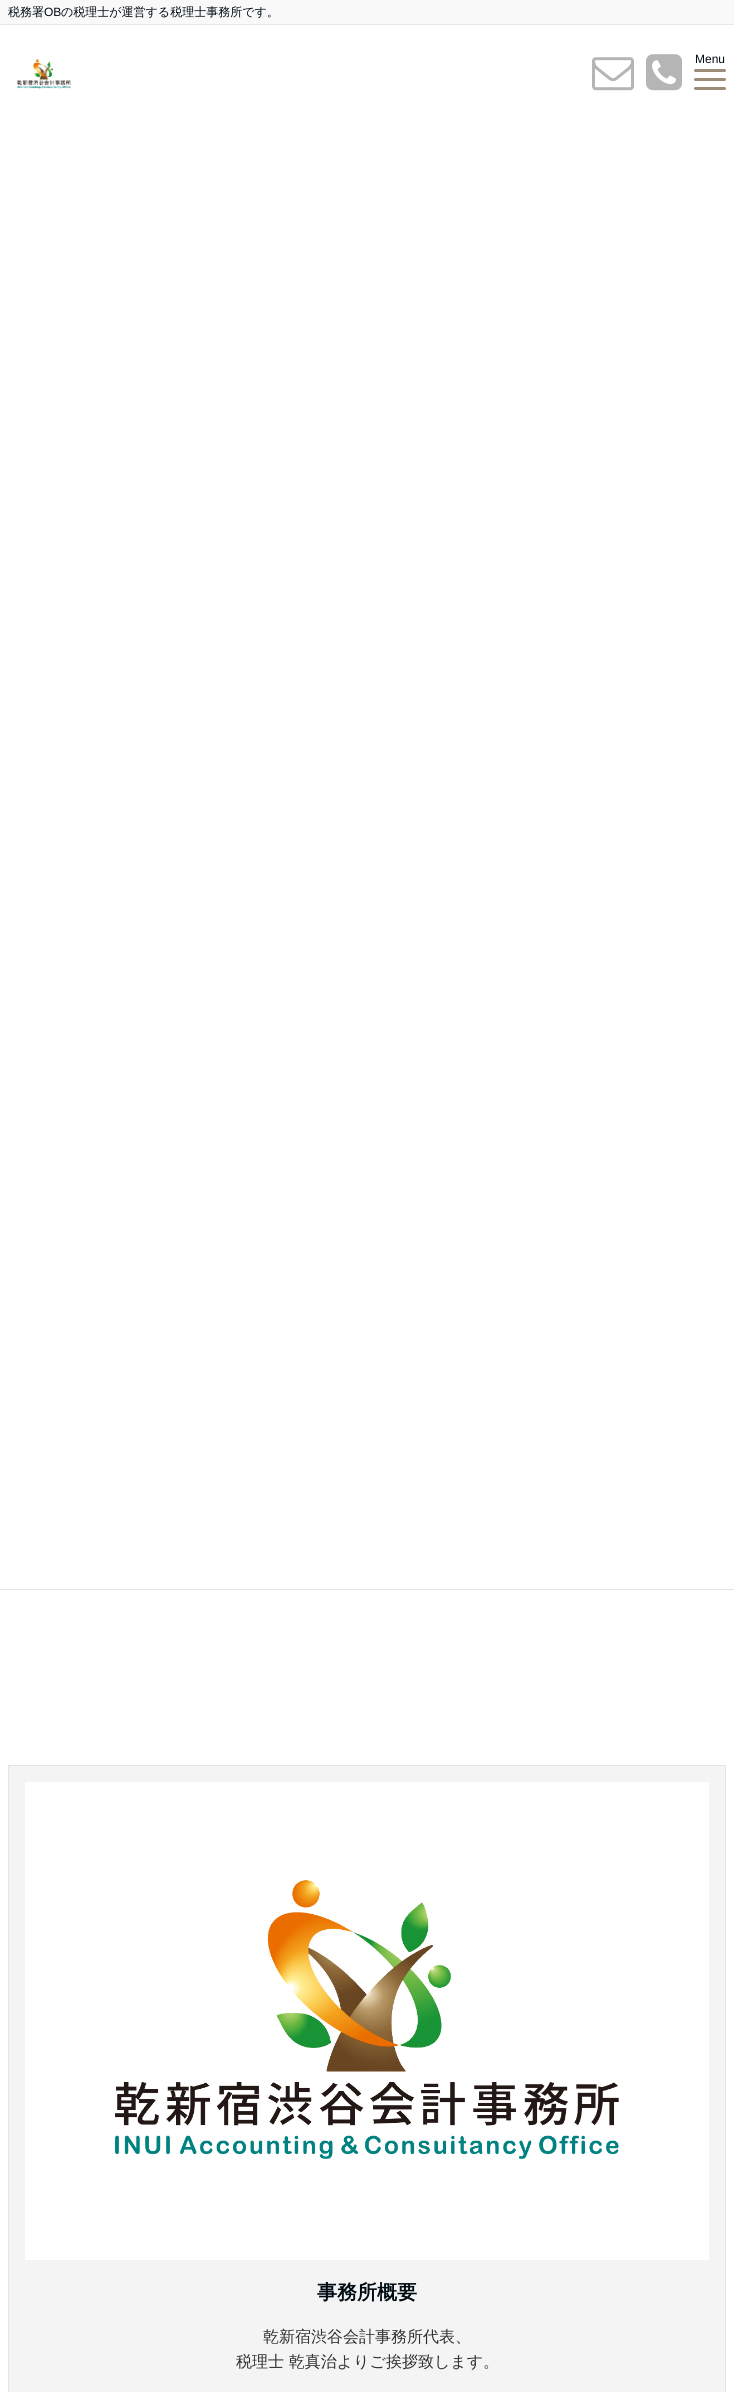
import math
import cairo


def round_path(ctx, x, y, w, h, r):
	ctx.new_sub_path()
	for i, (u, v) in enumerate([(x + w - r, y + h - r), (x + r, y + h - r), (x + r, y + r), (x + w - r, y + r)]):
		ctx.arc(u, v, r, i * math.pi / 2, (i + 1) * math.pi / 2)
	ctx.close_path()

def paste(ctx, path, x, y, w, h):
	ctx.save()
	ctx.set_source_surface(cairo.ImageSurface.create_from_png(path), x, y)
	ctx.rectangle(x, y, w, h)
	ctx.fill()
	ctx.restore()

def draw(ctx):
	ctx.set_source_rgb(0.973, 0.973, 0.973)
	ctx.paint()
	ctx.set_source_rgb(0.898, 0.906, 0.91)
	ctx.rectangle(0, 24, 734, 1)
	ctx.fill()
	ctx.select_font_face('WenQuanYi Zen Hei Medium')
	ctx.set_font_size(12)
	ctx.set_source_rgb(0, 0.047, 0.082)
	ctx.move_to(8, 16)
	ctx.show_text('税務署')
	ctx.select_font_face('Liberation Sans')
	ctx.move_to(44, 16)
	ctx.show_text('OB')
	ctx.select_font_face('WenQuanYi Zen Hei Medium')
	ctx.move_to(61, 16)
	ctx.show_text('の税理士が運営する税理士事務所です。')
	ctx.set_source_rgb(1, 1, 1)
	ctx.rectangle(0, 25, 734, 1564)
	ctx.fill()
	paste(ctx, 'media/1.png', 17, 59, 54, 30)
	paste(ctx, 'media/2.png', 592, 57, 42, 34)
	paste(ctx, 'media/3.png', 646, 54, 36, 37)
	ctx.select_font_face('Liberation Sans')
	ctx.set_source_rgb(0, 0.047, 0.082)
	ctx.move_to(695, 63)
	ctx.show_text('Menu')
	ctx.set_source_rgb(0.608, 0.553, 0.467)
	round_path(ctx, 694, 69, 32, 3, 1.5)
	ctx.fill()
	round_path(ctx, 694, 78, 32, 3, 1.5)
	ctx.fill()
	round_path(ctx, 694, 87, 32, 3, 1.5)
	ctx.fill()
	ctx.set_source_rgb(1, 1, 1)
	ctx.rectangle(0, 1590, 734, 802)
	ctx.fill()
	ctx.set_source_rgb(0.886, 0.898, 0.91)
	ctx.rectangle(0, 1589, 734, 1)
	ctx.fill()
	ctx.set_source_rgb(0.957, 0.957, 0.957)
	ctx.rectangle(8.5, 1765.5, 717, 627)
	ctx.fill_preserve()
	ctx.set_source_rgb(0.886, 0.898, 0.91)
	ctx.set_line_width(1)
	ctx.stroke()
	paste(ctx, 'media/4.png', 25, 1782, 684, 478)
	ctx.select_font_face('WenQuanYi Zen Hei', cairo.FONT_SLANT_NORMAL, cairo.FONT_WEIGHT_BOLD)
	ctx.set_font_size(20)
	ctx.set_source_rgb(0, 0.047, 0.082)
	ctx.move_to(317, 2299)
	ctx.show_text('事務所概要')
	ctx.select_font_face('WenQuanYi Zen Hei Medium')
	ctx.set_font_size(16)
	ctx.set_source_rgb(0.188, 0.188, 0.188)
	ctx.move_to(263, 2342)
	ctx.show_text('乾新宿渋谷会計事務所代表、')
	ctx.move_to(236, 2367)
	ctx.show_text('税理士 乾真治よりご挨拶致します。')


surface = cairo.ImageSurface(cairo.FORMAT_RGB24, 734, 2392)
ctx = cairo.Context(surface)
options = cairo.FontOptions()
options.set_hint_metrics(cairo.HINT_METRICS_OFF)
options.set_hint_style(cairo.HINT_STYLE_NONE)
ctx.set_font_options(options)
ctx.set_miter_limit(4)
draw(ctx)
surface.write_to_png('image.png')
